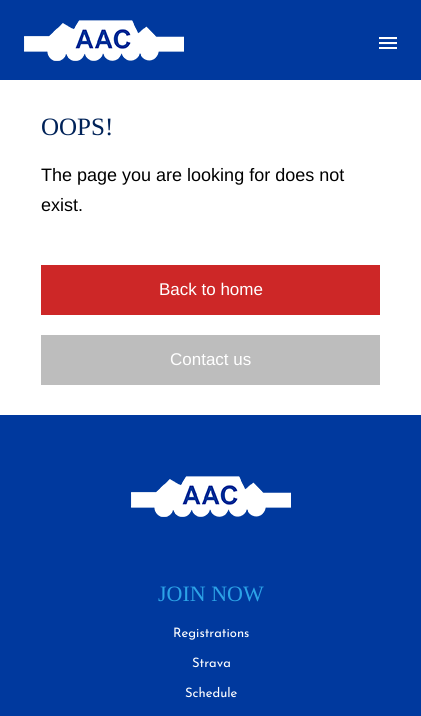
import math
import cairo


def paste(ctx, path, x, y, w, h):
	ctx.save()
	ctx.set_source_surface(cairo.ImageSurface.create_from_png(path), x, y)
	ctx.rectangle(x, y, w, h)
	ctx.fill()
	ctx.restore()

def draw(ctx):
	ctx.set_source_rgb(1, 1, 1)
	ctx.paint()
	ctx.set_source_rgb(0, 0.224, 0.62)
	ctx.rectangle(0, 0, 421, 80)
	ctx.fill()
	paste(ctx, 'media/1.png', 24, 20, 160, 41)
	paste(ctx, 'media/2.png', 379, 37, 18, 12)
	ctx.select_font_face('Liberation Serif')
	ctx.set_font_size(25)
	ctx.set_source_rgb(0, 0.133, 0.345)
	ctx.move_to(41, 135)
	ctx.show_text('OOPS!')
	ctx.select_font_face('Liberation Sans')
	ctx.set_font_size(18)
	ctx.set_source_rgb(0, 0, 0)
	ctx.move_to(41, 181)
	ctx.show_text('The page you are looking for does not')
	ctx.move_to(41, 211)
	ctx.show_text('exist.')
	ctx.set_source_rgb(0.804, 0.153, 0.153)
	ctx.rectangle(41, 265, 339, 50)
	ctx.fill()
	ctx.set_font_size(17)
	ctx.set_source_rgb(1, 1, 1)
	ctx.move_to(159, 295)
	ctx.show_text('Back to home')
	ctx.set_source_rgb(0.741, 0.741, 0.741)
	ctx.rectangle(41, 335, 339, 50)
	ctx.fill()
	ctx.set_source_rgb(1, 1, 1)
	ctx.move_to(170, 365)
	ctx.show_text('Contact us')
	ctx.set_source_rgb(0, 0.224, 0.62)
	ctx.rectangle(0, 415, 421, 301)
	ctx.fill()
	paste(ctx, 'media/1.png', 131, 476, 160, 41)
	ctx.select_font_face('Liberation Serif')
	ctx.set_font_size(22)
	ctx.set_source_rgb(0.173, 0.639, 0.906)
	ctx.move_to(158, 601)
	ctx.show_text('JOIN NOW')
	ctx.select_font_face('Josefin Sans')
	ctx.set_font_size(13)
	ctx.set_source_rgb(1, 1, 1)
	for x, y, s in [
		(173, 637, 'Registrations'),
		(192, 667, 'Strava'),
		(185, 697, 'Schedule'),
	]:
		ctx.move_to(x, y)
		ctx.show_text(s)


surface = cairo.ImageSurface(cairo.FORMAT_RGB24, 421, 716)
ctx = cairo.Context(surface)
options = cairo.FontOptions()
options.set_hint_metrics(cairo.HINT_METRICS_OFF)
options.set_hint_style(cairo.HINT_STYLE_NONE)
ctx.set_font_options(options)
ctx.set_miter_limit(4)
draw(ctx)
surface.write_to_png('image.png')
